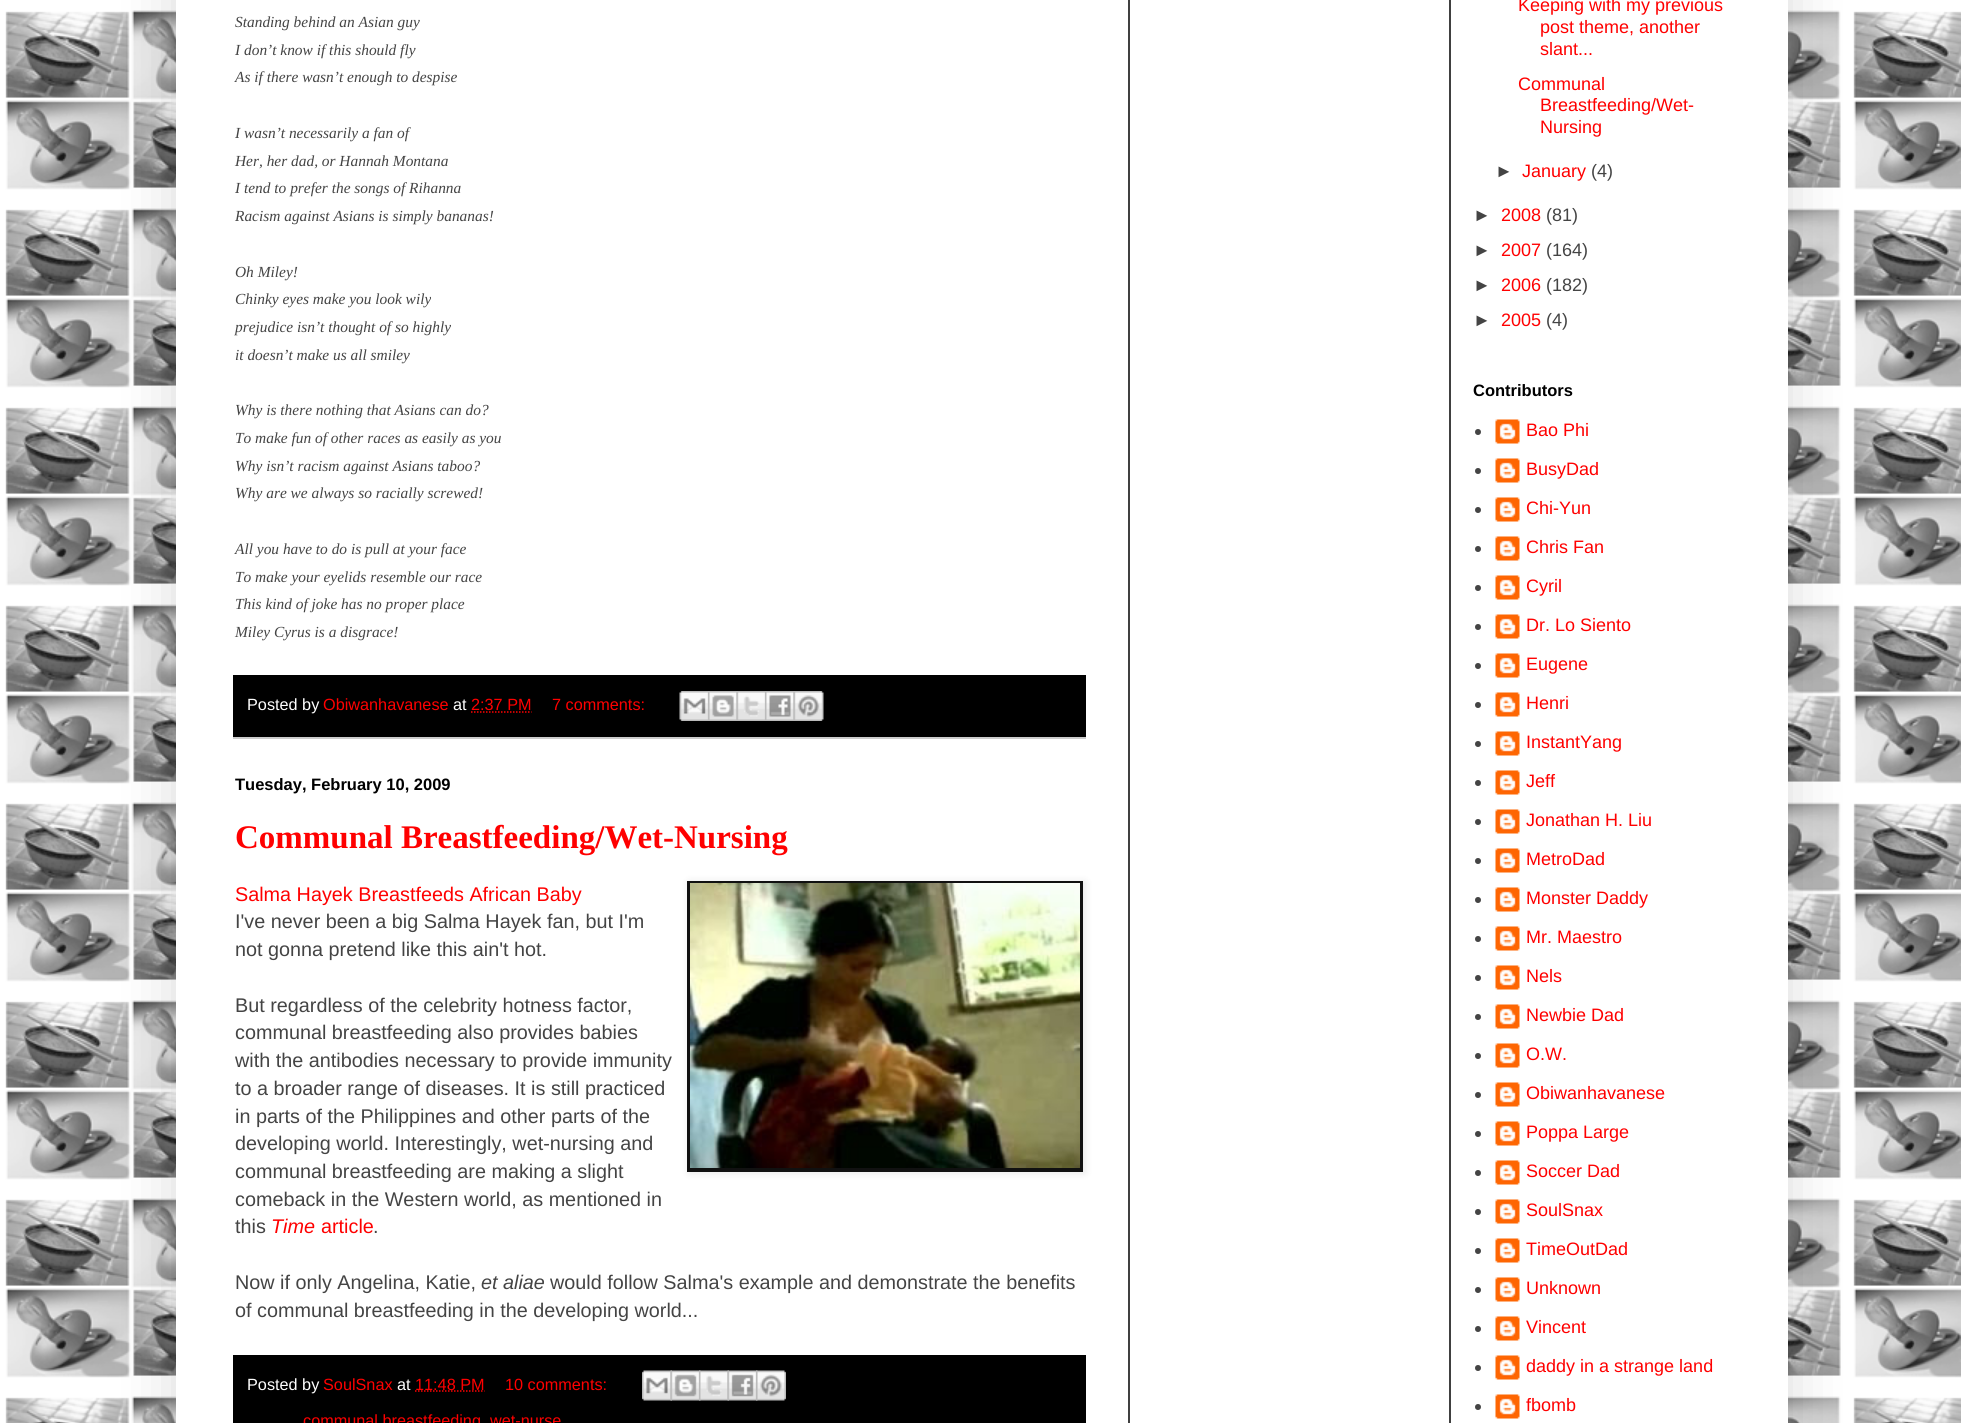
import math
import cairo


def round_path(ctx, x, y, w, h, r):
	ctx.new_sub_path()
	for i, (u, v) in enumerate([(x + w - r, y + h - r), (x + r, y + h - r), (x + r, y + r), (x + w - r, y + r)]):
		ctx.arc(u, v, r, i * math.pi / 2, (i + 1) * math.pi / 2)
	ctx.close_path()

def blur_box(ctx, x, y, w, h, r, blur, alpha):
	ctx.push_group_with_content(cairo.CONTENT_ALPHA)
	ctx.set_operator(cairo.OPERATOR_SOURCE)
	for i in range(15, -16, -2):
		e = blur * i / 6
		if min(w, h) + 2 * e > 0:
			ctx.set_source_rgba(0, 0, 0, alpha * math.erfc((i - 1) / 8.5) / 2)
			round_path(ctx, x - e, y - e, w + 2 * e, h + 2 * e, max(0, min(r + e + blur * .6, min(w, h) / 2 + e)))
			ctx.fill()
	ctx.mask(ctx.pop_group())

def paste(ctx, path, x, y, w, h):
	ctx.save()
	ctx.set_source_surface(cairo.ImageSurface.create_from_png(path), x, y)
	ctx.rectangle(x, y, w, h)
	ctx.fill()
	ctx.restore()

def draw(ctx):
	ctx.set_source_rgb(1, 1, 1)
	ctx.paint()
	paste(ctx, 'media/1.png', 0, 0, 1961, 1423)
	ctx.set_source_rgb(0, 0, 0)
	blur_box(ctx, 176, -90, 1612, 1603, 0, 30, 0.15)
	ctx.set_source_rgb(1, 1, 1)
	ctx.rectangle(176, 0, 1612, 1423)
	ctx.fill()
	ctx.select_font_face('Liberation Serif', cairo.FONT_SLANT_ITALIC)
	ctx.set_font_size(15.4)
	ctx.set_source_rgb(0.267, 0.267, 0.267)
	for x, y, s in [
		(235, 27, 'Standing behind an Asian guy'),
		(235, 55, 'I don’t know if this should fly'),
		(235, 82, 'As if there wasn’t enough to despise'),
		(235, 138, 'I wasn’t necessarily a fan of'),
		(235, 166, 'Her, her dad, or Hannah Montana'),
		(235, 193, 'I tend to prefer the songs of Rihanna'),
		(235, 221, 'Racism against Asians is simply bananas!'),
		(235, 277, 'Oh Miley!'),
		(235, 304, 'Chinky eyes make you look wily'),
		(235, 332, 'prejudice isn’t thought of so highly'),
		(235, 360, 'it doesn’t make us all smiley'),
		(235, 415, 'Why is there nothing that Asians can do?'),
		(235, 443, 'To make fun of other races as easily as you'),
		(235, 471, 'Why isn’t racism against Asians taboo?'),
		(235, 498, 'Why are we always so racially screwed!'),
		(235, 554, 'All you have to do is pull at your face'),
		(235, 582, 'To make your eyelids resemble our race'),
		(235, 609, 'This kind of joke has no proper place'),
		(235, 637, 'Miley Cyrus is a disgrace!'),
	]:
		ctx.move_to(x, y)
		ctx.show_text(s)
	ctx.set_source_rgb(0, 0, 0)
	ctx.rectangle(233, 675, 853, 62)
	ctx.fill()
	ctx.set_source_rgb(0.8, 0.8, 0.8)
	ctx.rectangle(233, 737, 853, 2)
	ctx.fill()
	ctx.select_font_face('Liberation Sans')
	ctx.set_font_size(16.25)
	ctx.set_source_rgb(1, 1, 1)
	ctx.move_to(247, 710)
	ctx.show_text('Posted by')
	ctx.set_source_rgb(1, 0, 0)
	ctx.move_to(323, 710)
	ctx.show_text('Obiwanhavanese')
	ctx.set_source_rgb(1, 1, 1)
	ctx.move_to(453, 710)
	ctx.show_text('at')
	ctx.set_source_rgb(1, 0, 0)
	ctx.move_to(471, 710)
	ctx.show_text('2:37 PM')
	ctx.new_path()
	ctx.move_to(471, 712)
	ctx.line_to(531.5, 712)
	ctx.set_line_width(1.5)
	ctx.set_dash([1.5, 1.5])
	ctx.stroke()
	ctx.move_to(552, 710)
	ctx.show_text('7 comments:')
	paste(ctx, 'media/2.png', 679, 691, 29, 30)
	paste(ctx, 'media/3.png', 708, 691, 29, 30)
	paste(ctx, 'media/4.png', 736, 691, 29, 30)
	paste(ctx, 'media/5.png', 765, 691, 29, 30)
	paste(ctx, 'media/6.png', 793, 691, 31, 30)
	ctx.select_font_face('Liberation Sans', cairo.FONT_SLANT_NORMAL, cairo.FONT_WEIGHT_BOLD)
	ctx.set_font_size(16.5)
	ctx.set_source_rgb(0, 0, 0)
	ctx.move_to(235, 790)
	ctx.show_text('Tuesday, February 10, 2009')
	ctx.select_font_face('Liberation Serif', cairo.FONT_SLANT_NORMAL, cairo.FONT_WEIGHT_BOLD)
	ctx.set_font_size(33)
	ctx.set_source_rgb(1, 0, 0)
	ctx.move_to(235, 848)
	ctx.show_text('Communal Breastfeeding/Wet-Nursing')
	ctx.select_font_face('Liberation Sans')
	ctx.set_font_size(19.8)
	ctx.move_to(235, 901)
	ctx.show_text('Salma Hayek Breastfeeds African Baby')
	ctx.set_source_rgb(0, 0, 0)
	blur_box(ctx, 689, 882, 396, 291, 0, 4, 0.1)
	ctx.set_source_rgb(0.067, 0.067, 0.067)
	ctx.rectangle(687, 881, 396, 291)
	ctx.fill()
	paste(ctx, 'media/7.png', 690, 883, 390, 285)
	ctx.set_source_rgb(0.267, 0.267, 0.267)
	for x, y, s in [
		(235, 928, 'I\'ve never been a big Salma Hayek fan, but I\'m'),
		(235, 956, 'not gonna pretend like this ain\'t hot.'),
		(235, 1012, 'But regardless of the celebrity hotness factor,'),
		(235, 1039, 'communal breastfeeding also provides babies'),
		(235, 1067, 'with the antibodies necessary to provide immunity'),
		(235, 1095, 'to a broader range of diseases. It is still practiced'),
		(235, 1123, 'in parts of the Philippines and other parts of the'),
		(235, 1150, 'developing world. Interestingly, wet-nursing and'),
		(235, 1178, 'communal breastfeeding are making a slight'),
		(235, 1206, 'comeback in the Western world, as mentioned in'),
		(235, 1233, 'this'),
	]:
		ctx.move_to(x, y)
		ctx.show_text(s)
	ctx.select_font_face('Liberation Sans', cairo.FONT_SLANT_ITALIC)
	ctx.set_source_rgb(1, 0, 0)
	ctx.move_to(271, 1233)
	ctx.show_text('Time')
	ctx.select_font_face('Liberation Sans')
	ctx.move_to(321, 1233)
	ctx.show_text('article')
	ctx.set_source_rgb(0.267, 0.267, 0.267)
	ctx.move_to(373, 1233)
	ctx.show_text('.')
	ctx.move_to(235, 1289)
	ctx.show_text('Now if only Angelina, Katie,')
	ctx.select_font_face('Liberation Sans', cairo.FONT_SLANT_ITALIC)
	ctx.move_to(481, 1289)
	ctx.show_text('et aliae')
	ctx.select_font_face('Liberation Sans')
	ctx.move_to(550, 1289)
	ctx.show_text('would follow Salma\'s example and demonstrate the benefits')
	ctx.move_to(235, 1317)
	ctx.show_text('of communal breastfeeding in the developing world...')
	ctx.set_source_rgb(0, 0, 0)
	ctx.rectangle(233, 1355, 853, 68)
	ctx.fill()
	ctx.set_font_size(16.25)
	ctx.set_source_rgb(1, 1, 1)
	ctx.move_to(247, 1390)
	ctx.show_text('Posted by')
	ctx.set_source_rgb(1, 0, 0)
	ctx.move_to(323, 1390)
	ctx.show_text('SoulSnax')
	ctx.set_source_rgb(1, 1, 1)
	ctx.move_to(397, 1390)
	ctx.show_text('at')
	ctx.new_path()
	ctx.move_to(415, 1391)
	ctx.line_to(484.5, 1391)
	ctx.set_source_rgb(1, 0, 0)
	ctx.stroke()
	ctx.move_to(415, 1390)
	ctx.show_text('11:48 PM')
	ctx.move_to(505, 1390)
	ctx.show_text('10 comments:')
	paste(ctx, 'media/8.png', 642, 1370, 30, 31)
	paste(ctx, 'media/9.png', 670, 1370, 31, 31)
	paste(ctx, 'media/10.png', 699, 1370, 30, 31)
	paste(ctx, 'media/11.png', 727, 1370, 31, 31)
	paste(ctx, 'media/12.png', 756, 1370, 30, 31)
	ctx.move_to(303, 1426)
	ctx.show_text('communal breastfeeding')
	ctx.move_to(490, 1426)
	ctx.show_text('wet-nurse')
	ctx.set_source_rgb(0.251, 0.251, 0.251)
	ctx.rectangle(1449, 0, 2, 1423)
	ctx.fill()
	ctx.set_font_size(18)
	ctx.set_source_rgb(1, 0, 0)
	for x, y, s in [
		(1518, 11, 'Keeping with my previous'),
		(1540, 33, 'post theme, another'),
		(1540, 55, 'slant...'),
		(1518, 90, 'Communal'),
		(1540, 111, 'Breastfeeding/Wet-'),
		(1540, 133, 'Nursing'),
	]:
		ctx.move_to(x, y)
		ctx.show_text(s)
	ctx.set_source_rgb(0.267, 0.267, 0.267)
	ctx.move_to(1495, 177)
	ctx.show_text('►')
	ctx.set_source_rgb(1, 0, 0)
	ctx.move_to(1522, 177)
	ctx.show_text('January')
	ctx.set_source_rgb(0.267, 0.267, 0.267)
	ctx.move_to(1591, 177)
	ctx.show_text('(4)')
	ctx.move_to(1473, 221)
	ctx.show_text('►')
	ctx.set_source_rgb(1, 0, 0)
	ctx.move_to(1501, 221)
	ctx.show_text('2008')
	ctx.set_source_rgb(0.267, 0.267, 0.267)
	ctx.move_to(1546, 221)
	ctx.show_text('(81)')
	ctx.move_to(1473, 256)
	ctx.show_text('►')
	ctx.set_source_rgb(1, 0, 0)
	ctx.move_to(1501, 256)
	ctx.show_text('2007')
	ctx.set_source_rgb(0.267, 0.267, 0.267)
	ctx.move_to(1546, 256)
	ctx.show_text('(164)')
	ctx.move_to(1473, 291)
	ctx.show_text('►')
	ctx.set_source_rgb(1, 0, 0)
	ctx.move_to(1501, 291)
	ctx.show_text('2006')
	ctx.set_source_rgb(0.267, 0.267, 0.267)
	ctx.move_to(1546, 291)
	ctx.show_text('(182)')
	ctx.move_to(1473, 326)
	ctx.show_text('►')
	ctx.set_source_rgb(1, 0, 0)
	ctx.move_to(1501, 326)
	ctx.show_text('2005')
	ctx.set_source_rgb(0.267, 0.267, 0.267)
	ctx.move_to(1546, 326)
	ctx.show_text('(4)')
	ctx.select_font_face('Liberation Sans', cairo.FONT_SLANT_NORMAL, cairo.FONT_WEIGHT_BOLD)
	ctx.set_font_size(16.5)
	ctx.set_source_rgb(0, 0, 0)
	ctx.move_to(1473, 396)
	ctx.show_text('Contributors')
	ctx.set_source_rgb(0.267, 0.267, 0.267)
	ctx.new_path()
	ctx.arc(1478, 432, 3, 0, 2 * math.pi)
	ctx.fill()
	paste(ctx, 'media/13.png', 1495, 419, 25, 25)
	ctx.select_font_face('Liberation Sans')
	ctx.set_font_size(18)
	ctx.set_source_rgb(1, 0, 0)
	ctx.move_to(1526, 436)
	ctx.show_text('Bao Phi')
	ctx.set_source_rgb(0.267, 0.267, 0.267)
	ctx.new_path()
	ctx.arc(1478, 471, 3, 0, 2 * math.pi)
	ctx.fill()
	paste(ctx, 'media/13.png', 1495, 458, 25, 25)
	ctx.set_source_rgb(1, 0, 0)
	ctx.move_to(1526, 475)
	ctx.show_text('BusyDad')
	ctx.set_source_rgb(0.267, 0.267, 0.267)
	ctx.new_path()
	ctx.arc(1478, 510, 3, 0, 2 * math.pi)
	ctx.fill()
	paste(ctx, 'media/13.png', 1495, 497, 25, 25)
	ctx.set_source_rgb(1, 0, 0)
	ctx.move_to(1526, 514)
	ctx.show_text('Chi-Yun')
	ctx.set_source_rgb(0.267, 0.267, 0.267)
	ctx.new_path()
	ctx.arc(1478, 549, 3, 0, 2 * math.pi)
	ctx.fill()
	paste(ctx, 'media/13.png', 1495, 536, 25, 25)
	ctx.set_source_rgb(1, 0, 0)
	ctx.move_to(1526, 553)
	ctx.show_text('Chris Fan')
	ctx.set_source_rgb(0.267, 0.267, 0.267)
	ctx.new_path()
	ctx.arc(1478, 588, 3, 0, 2 * math.pi)
	ctx.fill()
	paste(ctx, 'media/13.png', 1495, 575, 25, 25)
	ctx.set_source_rgb(1, 0, 0)
	ctx.move_to(1526, 592)
	ctx.show_text('Cyril')
	ctx.set_source_rgb(0.267, 0.267, 0.267)
	ctx.new_path()
	ctx.arc(1478, 627, 3, 0, 2 * math.pi)
	ctx.fill()
	paste(ctx, 'media/13.png', 1495, 614, 25, 25)
	ctx.set_source_rgb(1, 0, 0)
	ctx.move_to(1526, 631)
	ctx.show_text('Dr. Lo Siento')
	ctx.set_source_rgb(0.267, 0.267, 0.267)
	ctx.new_path()
	ctx.arc(1478, 666, 3, 0, 2 * math.pi)
	ctx.fill()
	paste(ctx, 'media/13.png', 1495, 653, 25, 25)
	ctx.set_source_rgb(1, 0, 0)
	ctx.move_to(1526, 670)
	ctx.show_text('Eugene')
	ctx.set_source_rgb(0.267, 0.267, 0.267)
	ctx.new_path()
	ctx.arc(1478, 705, 3, 0, 2 * math.pi)
	ctx.fill()
	paste(ctx, 'media/13.png', 1495, 692, 25, 25)
	ctx.set_source_rgb(1, 0, 0)
	ctx.move_to(1526, 709)
	ctx.show_text('Henri')
	ctx.set_source_rgb(0.267, 0.267, 0.267)
	ctx.new_path()
	ctx.arc(1478, 744, 3, 0, 2 * math.pi)
	ctx.fill()
	paste(ctx, 'media/13.png', 1495, 731, 25, 25)
	ctx.set_source_rgb(1, 0, 0)
	ctx.move_to(1526, 748)
	ctx.show_text('InstantYang')
	ctx.set_source_rgb(0.267, 0.267, 0.267)
	ctx.new_path()
	ctx.arc(1478, 783, 3, 0, 2 * math.pi)
	ctx.fill()
	paste(ctx, 'media/13.png', 1495, 770, 25, 25)
	ctx.set_source_rgb(1, 0, 0)
	ctx.move_to(1526, 787)
	ctx.show_text('Jeff')
	ctx.set_source_rgb(0.267, 0.267, 0.267)
	ctx.new_path()
	ctx.arc(1478, 822, 3, 0, 2 * math.pi)
	ctx.fill()
	paste(ctx, 'media/13.png', 1495, 809, 25, 25)
	ctx.set_source_rgb(1, 0, 0)
	ctx.move_to(1526, 826)
	ctx.show_text('Jonathan H. Liu')
	ctx.set_source_rgb(0.267, 0.267, 0.267)
	ctx.new_path()
	ctx.arc(1478, 861, 3, 0, 2 * math.pi)
	ctx.fill()
	paste(ctx, 'media/13.png', 1495, 848, 25, 25)
	ctx.set_source_rgb(1, 0, 0)
	ctx.move_to(1526, 865)
	ctx.show_text('MetroDad')
	ctx.set_source_rgb(0.267, 0.267, 0.267)
	ctx.new_path()
	ctx.arc(1478, 900, 3, 0, 2 * math.pi)
	ctx.fill()
	paste(ctx, 'media/13.png', 1495, 887, 25, 25)
	ctx.set_source_rgb(1, 0, 0)
	ctx.move_to(1526, 904)
	ctx.show_text('Monster Daddy')
	ctx.set_source_rgb(0.267, 0.267, 0.267)
	ctx.new_path()
	ctx.arc(1478, 939, 3, 0, 2 * math.pi)
	ctx.fill()
	paste(ctx, 'media/13.png', 1495, 926, 25, 25)
	ctx.set_source_rgb(1, 0, 0)
	ctx.move_to(1526, 943)
	ctx.show_text('Mr. Maestro')
	ctx.set_source_rgb(0.267, 0.267, 0.267)
	ctx.new_path()
	ctx.arc(1478, 978, 3, 0, 2 * math.pi)
	ctx.fill()
	paste(ctx, 'media/13.png', 1495, 965, 25, 25)
	ctx.set_source_rgb(1, 0, 0)
	ctx.move_to(1526, 982)
	ctx.show_text('Nels')
	ctx.set_source_rgb(0.267, 0.267, 0.267)
	ctx.new_path()
	ctx.arc(1478, 1017, 3, 0, 2 * math.pi)
	ctx.fill()
	paste(ctx, 'media/13.png', 1495, 1004, 25, 25)
	ctx.set_source_rgb(1, 0, 0)
	ctx.move_to(1526, 1021)
	ctx.show_text('Newbie Dad')
	ctx.set_source_rgb(0.267, 0.267, 0.267)
	ctx.new_path()
	ctx.arc(1478, 1056, 3, 0, 2 * math.pi)
	ctx.fill()
	paste(ctx, 'media/13.png', 1495, 1043, 25, 25)
	ctx.set_source_rgb(1, 0, 0)
	ctx.move_to(1526, 1060)
	ctx.show_text('O.W.')
	ctx.set_source_rgb(0.267, 0.267, 0.267)
	ctx.new_path()
	ctx.arc(1478, 1095, 3, 0, 2 * math.pi)
	ctx.fill()
	paste(ctx, 'media/13.png', 1495, 1082, 25, 25)
	ctx.set_source_rgb(1, 0, 0)
	ctx.move_to(1526, 1099)
	ctx.show_text('Obiwanhavanese')
	ctx.set_source_rgb(0.267, 0.267, 0.267)
	ctx.new_path()
	ctx.arc(1478, 1134, 3, 0, 2 * math.pi)
	ctx.fill()
	paste(ctx, 'media/13.png', 1495, 1121, 25, 25)
	ctx.set_source_rgb(1, 0, 0)
	ctx.move_to(1526, 1138)
	ctx.show_text('Poppa Large')
	ctx.set_source_rgb(0.267, 0.267, 0.267)
	ctx.new_path()
	ctx.arc(1478, 1173, 3, 0, 2 * math.pi)
	ctx.fill()
	paste(ctx, 'media/13.png', 1495, 1160, 25, 25)
	ctx.set_source_rgb(1, 0, 0)
	ctx.move_to(1526, 1177)
	ctx.show_text('Soccer Dad')
	ctx.set_source_rgb(0.267, 0.267, 0.267)
	ctx.new_path()
	ctx.arc(1478, 1212, 3, 0, 2 * math.pi)
	ctx.fill()
	paste(ctx, 'media/13.png', 1495, 1199, 25, 25)
	ctx.set_source_rgb(1, 0, 0)
	ctx.move_to(1526, 1216)
	ctx.show_text('SoulSnax')
	ctx.set_source_rgb(0.267, 0.267, 0.267)
	ctx.new_path()
	ctx.arc(1478, 1251, 3, 0, 2 * math.pi)
	ctx.fill()
	paste(ctx, 'media/13.png', 1495, 1238, 25, 25)
	ctx.set_source_rgb(1, 0, 0)
	ctx.move_to(1526, 1255)
	ctx.show_text('TimeOutDad')
	ctx.set_source_rgb(0.267, 0.267, 0.267)
	ctx.new_path()
	ctx.arc(1478, 1290, 3, 0, 2 * math.pi)
	ctx.fill()
	paste(ctx, 'media/13.png', 1495, 1277, 25, 25)
	ctx.set_source_rgb(1, 0, 0)
	ctx.move_to(1526, 1294)
	ctx.show_text('Unknown')
	ctx.set_source_rgb(0.267, 0.267, 0.267)
	ctx.new_path()
	ctx.arc(1478, 1329, 3, 0, 2 * math.pi)
	ctx.fill()
	paste(ctx, 'media/13.png', 1495, 1316, 25, 25)
	ctx.set_source_rgb(1, 0, 0)
	ctx.move_to(1526, 1333)
	ctx.show_text('Vincent')
	ctx.set_source_rgb(0.267, 0.267, 0.267)
	ctx.new_path()
	ctx.arc(1478, 1368, 3, 0, 2 * math.pi)
	ctx.fill()
	paste(ctx, 'media/13.png', 1495, 1355, 25, 25)
	ctx.set_source_rgb(1, 0, 0)
	ctx.move_to(1526, 1372)
	ctx.show_text('daddy in a strange land')
	ctx.set_source_rgb(0.267, 0.267, 0.267)
	ctx.new_path()
	ctx.arc(1478, 1407, 3, 0, 2 * math.pi)
	ctx.fill()
	paste(ctx, 'media/13.png', 1495, 1394, 25, 25)
	ctx.set_source_rgb(1, 0, 0)
	ctx.move_to(1526, 1411)
	ctx.show_text('fbomb')
	ctx.set_source_rgb(0.251, 0.251, 0.251)
	ctx.rectangle(1128, 0, 2, 1423)
	ctx.fill()


surface = cairo.ImageSurface(cairo.FORMAT_RGB24, 1961, 1423)
ctx = cairo.Context(surface)
options = cairo.FontOptions()
options.set_hint_metrics(cairo.HINT_METRICS_OFF)
options.set_hint_style(cairo.HINT_STYLE_NONE)
ctx.set_font_options(options)
ctx.set_miter_limit(4)
draw(ctx)
surface.write_to_png('image.png')
